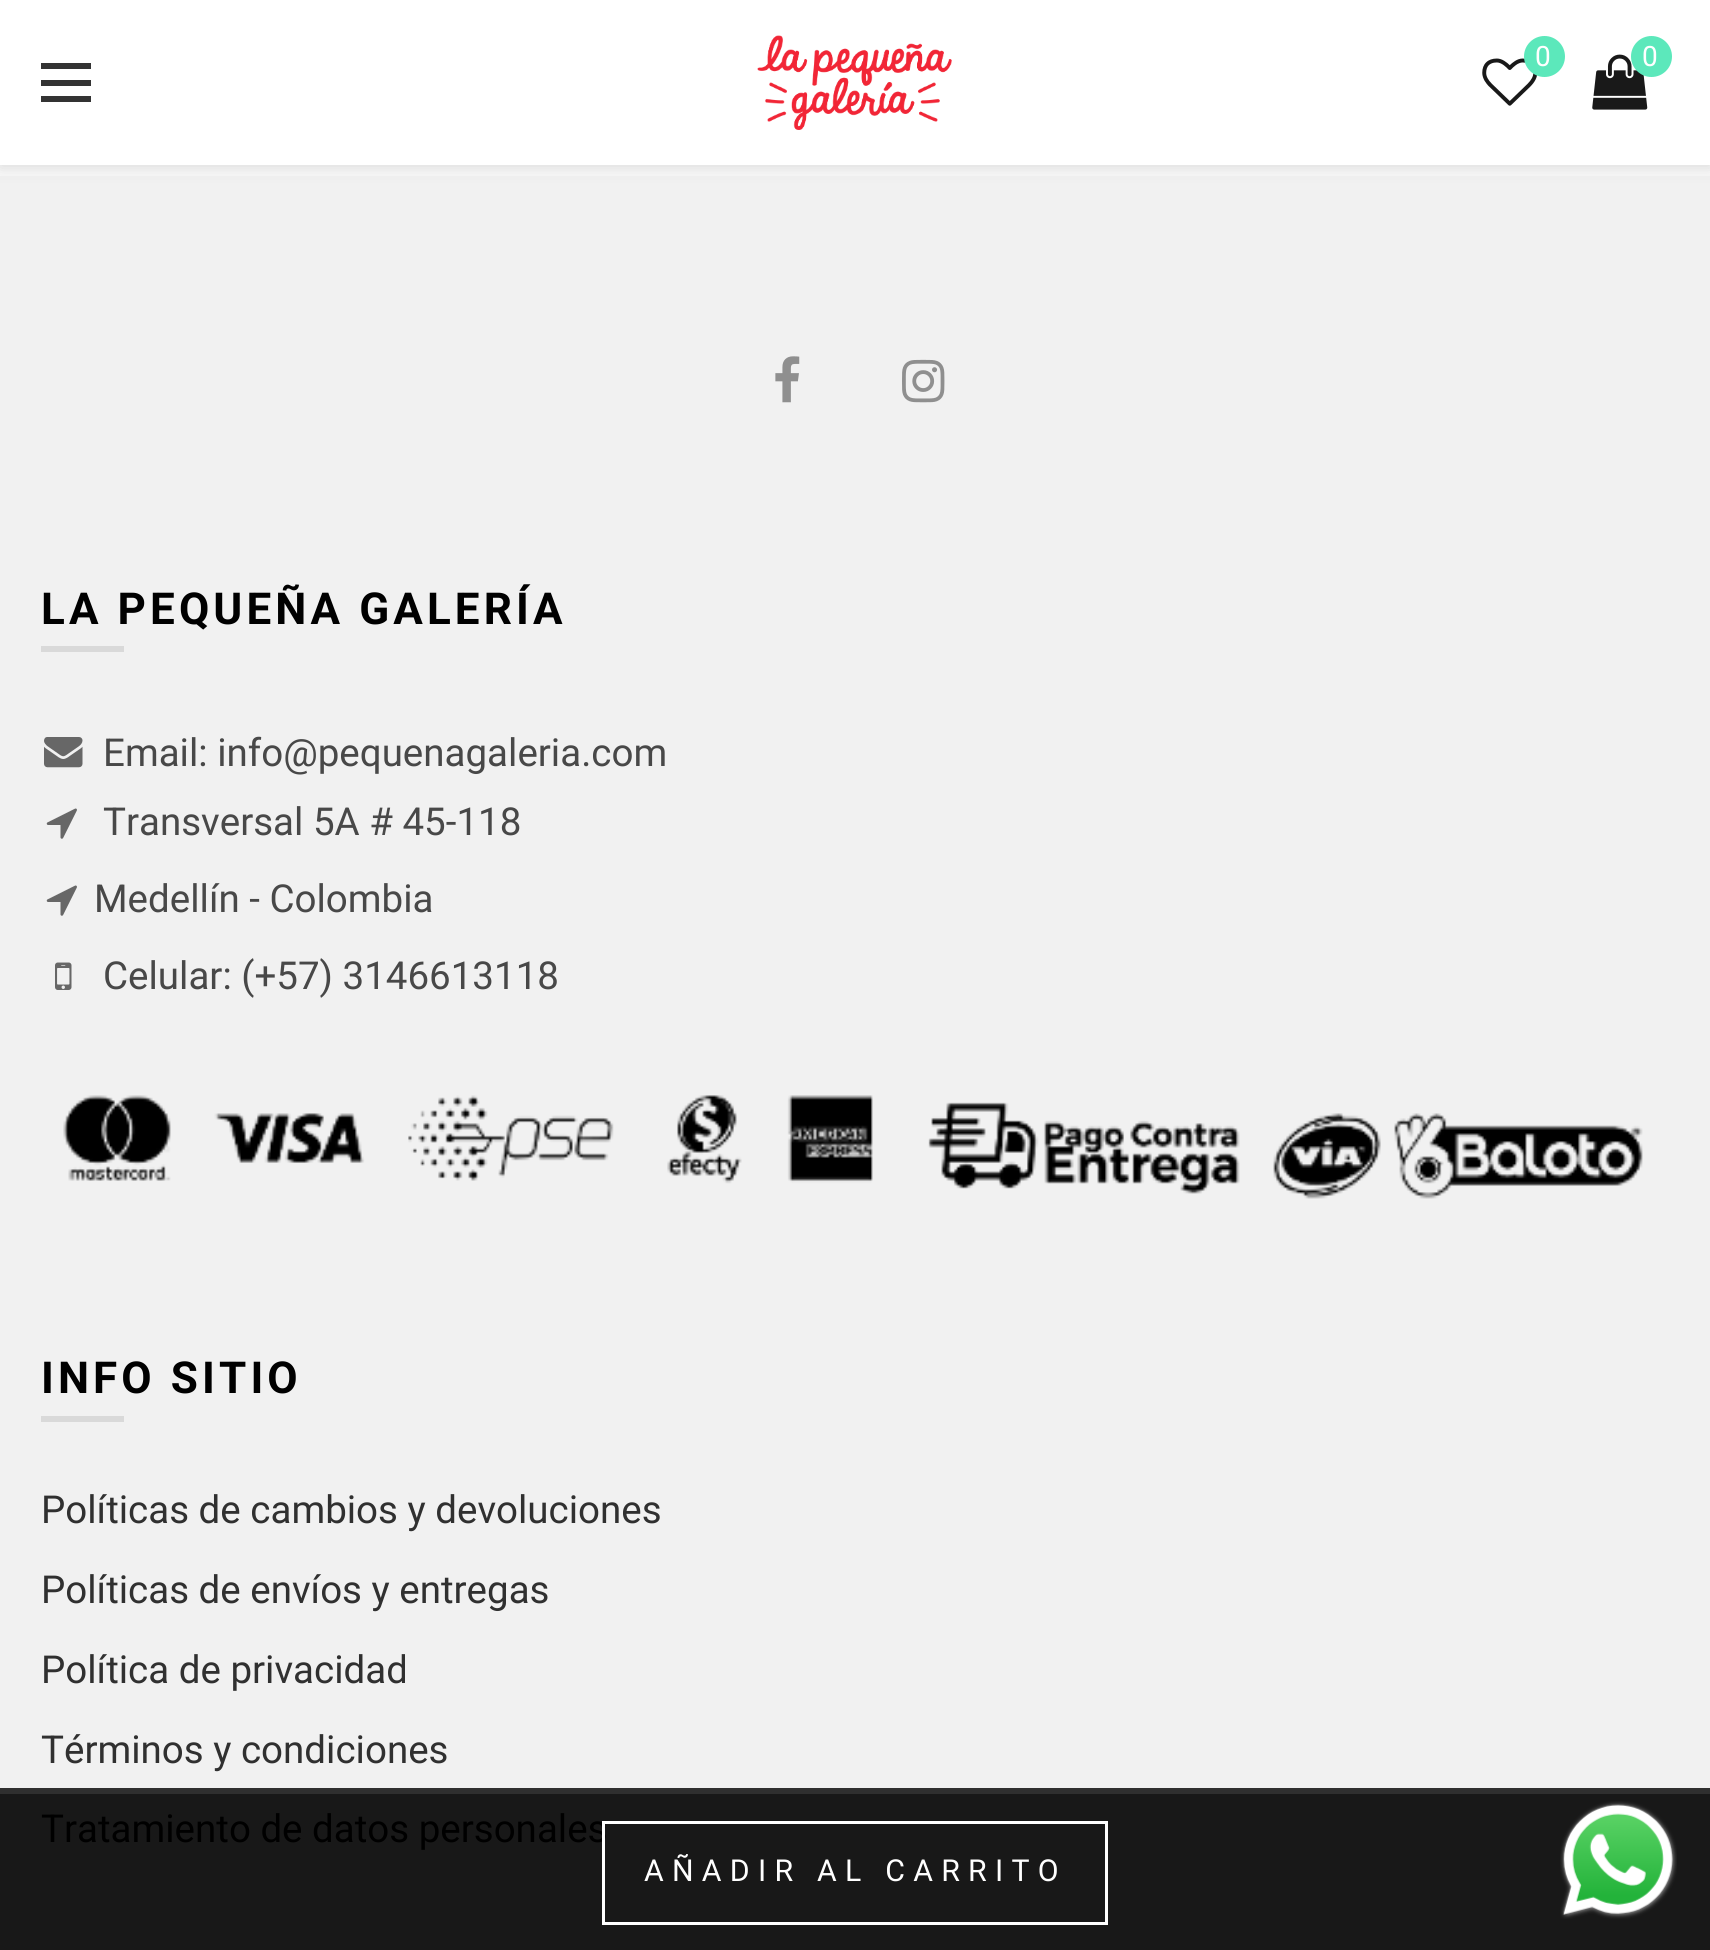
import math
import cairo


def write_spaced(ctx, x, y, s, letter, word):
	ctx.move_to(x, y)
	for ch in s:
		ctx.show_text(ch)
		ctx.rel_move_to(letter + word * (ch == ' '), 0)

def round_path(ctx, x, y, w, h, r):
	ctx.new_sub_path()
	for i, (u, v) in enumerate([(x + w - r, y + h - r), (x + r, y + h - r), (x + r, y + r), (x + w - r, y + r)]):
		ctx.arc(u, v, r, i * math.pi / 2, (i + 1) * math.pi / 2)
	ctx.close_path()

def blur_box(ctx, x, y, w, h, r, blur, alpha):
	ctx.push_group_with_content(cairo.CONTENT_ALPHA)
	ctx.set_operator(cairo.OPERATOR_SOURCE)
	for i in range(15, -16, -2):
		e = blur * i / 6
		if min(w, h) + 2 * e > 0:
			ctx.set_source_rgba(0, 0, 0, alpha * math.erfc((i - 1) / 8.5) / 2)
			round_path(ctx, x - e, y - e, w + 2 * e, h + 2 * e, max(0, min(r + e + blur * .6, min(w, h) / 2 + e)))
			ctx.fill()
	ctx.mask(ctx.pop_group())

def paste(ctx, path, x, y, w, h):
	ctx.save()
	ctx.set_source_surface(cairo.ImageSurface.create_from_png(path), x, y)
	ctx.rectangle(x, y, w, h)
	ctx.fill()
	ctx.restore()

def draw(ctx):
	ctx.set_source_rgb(0.945, 0.945, 0.945)
	ctx.paint()
	ctx.set_source_rgb(0.976, 0.976, 0.976)
	ctx.rectangle(0, 165, 1710, 11)
	ctx.fill()
	ctx.set_source_rgb(0.745, 0.745, 0.745)
	blur_box(ctx, 0, 3, 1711, 165, 0, 7, 0.5)
	ctx.set_source_rgb(1, 1, 1)
	ctx.rectangle(0, 0, 1710, 165)
	ctx.fill()
	paste(ctx, 'media/1.png', 757, 35, 195, 95)
	paste(ctx, 'media/2.png', 1482, 58, 55, 48)
	ctx.set_source_rgb(0.361, 0.91, 0.733)
	ctx.arc(1544.5, 56.5, 20.5, 0, 2 * math.pi)
	ctx.fill()
	ctx.select_font_face('Roboto')
	ctx.set_font_size(28)
	ctx.set_source_rgb(1, 1, 1)
	ctx.move_to(1535, 66)
	ctx.show_text('0')
	paste(ctx, 'media/3.png', 1592, 54, 56, 56)
	ctx.set_source_rgb(0.361, 0.91, 0.733)
	ctx.arc(1651.5, 56.5, 20.5, 0, 2 * math.pi)
	ctx.fill()
	ctx.set_source_rgb(1, 1, 1)
	ctx.move_to(1642, 66)
	ctx.show_text('0')
	ctx.set_source_rgb(0.2, 0.2, 0.2)
	ctx.rectangle(41, 80, 50, 6)
	ctx.rectangle(41, 63, 50, 6)
	ctx.rectangle(41, 96, 50, 6)
	ctx.fill()
	ctx.set_source_rgb(0.094, 0.094, 0.094)
	ctx.rectangle(0, 1794, 1710, 156)
	ctx.fill()
	paste(ctx, 'media/4.png', 775, 356, 25, 47)
	paste(ctx, 'media/5.png', 902, 359, 43, 44)
	ctx.select_font_face('Roboto', cairo.FONT_SLANT_NORMAL, cairo.FONT_WEIGHT_BOLD)
	ctx.set_font_size(44)
	ctx.set_source_rgb(0, 0, 0)
	write_spaced(ctx, 41, 624, 'LA PEQUEÑA GALERÍA', 4.1, 0)
	ctx.set_source_rgb(0.851, 0.851, 0.851)
	ctx.rectangle(41, 646, 83, 6)
	ctx.fill()
	paste(ctx, 'media/6.png', 44, 737, 39, 31)
	ctx.select_font_face('Roboto')
	ctx.set_font_size(38.5)
	ctx.set_source_rgb(0.282, 0.282, 0.282)
	ctx.move_to(103, 766)
	ctx.show_text('Email: info@pequenagaleria.com')
	paste(ctx, 'media/7.png', 46, 808, 31, 31)
	ctx.move_to(103, 835)
	ctx.show_text('Transversal 5A # 45-118')
	paste(ctx, 'media/7.png', 46, 885, 31, 31)
	ctx.move_to(94, 912)
	ctx.show_text('Medellín - Colombia')
	paste(ctx, 'media/8.png', 55, 962, 17, 28)
	ctx.move_to(103, 989)
	ctx.show_text('Celular: (+57) 3146613118')
	paste(ctx, 'media/9.png', 63, 1095, 1580, 104)
	ctx.select_font_face('Roboto', cairo.FONT_SLANT_NORMAL, cairo.FONT_WEIGHT_BOLD)
	ctx.set_font_size(44)
	ctx.set_source_rgb(0, 0, 0)
	write_spaced(ctx, 41, 1393, 'INFO SITIO', 4.1, 0)
	ctx.set_source_rgb(0.851, 0.851, 0.851)
	ctx.rectangle(41, 1416, 83, 6)
	ctx.fill()
	ctx.select_font_face('Roboto')
	ctx.set_font_size(38.5)
	ctx.set_source_rgb(0.188, 0.188, 0.188)
	for x, y, s in [
		(41, 1523, 'Políticas de cambios y devoluciones'),
		(41, 1603, 'Políticas de envíos y entregas'),
		(41, 1683, 'Política de privacidad'),
		(41, 1763, 'Términos y condiciones'),
	]:
		ctx.move_to(x, y)
		ctx.show_text(s)
	ctx.set_source_rgb(0, 0, 0)
	ctx.move_to(41, 1842)
	ctx.show_text('Tratamiento de datos personales')
	ctx.set_source_rgb(0.184, 0.184, 0.184)
	ctx.rectangle(0, 1788, 1710, 6)
	ctx.fill()
	ctx.rectangle(603.5, 1822.5, 503, 101)
	ctx.set_source_rgb(1, 1, 1)
	ctx.set_line_width(3)
	ctx.stroke()
	ctx.set_font_size(30.25)
	write_spaced(ctx, 644, 1881, 'AÑADIR AL CARRITO', 8.25, 0)
	paste(ctx, 'media/10.png', 1560, 1801, 117, 118)


surface = cairo.ImageSurface(cairo.FORMAT_RGB24, 1710, 1950)
ctx = cairo.Context(surface)
options = cairo.FontOptions()
options.set_hint_metrics(cairo.HINT_METRICS_OFF)
options.set_hint_style(cairo.HINT_STYLE_NONE)
ctx.set_font_options(options)
ctx.set_miter_limit(4)
draw(ctx)
surface.write_to_png('image.png')
